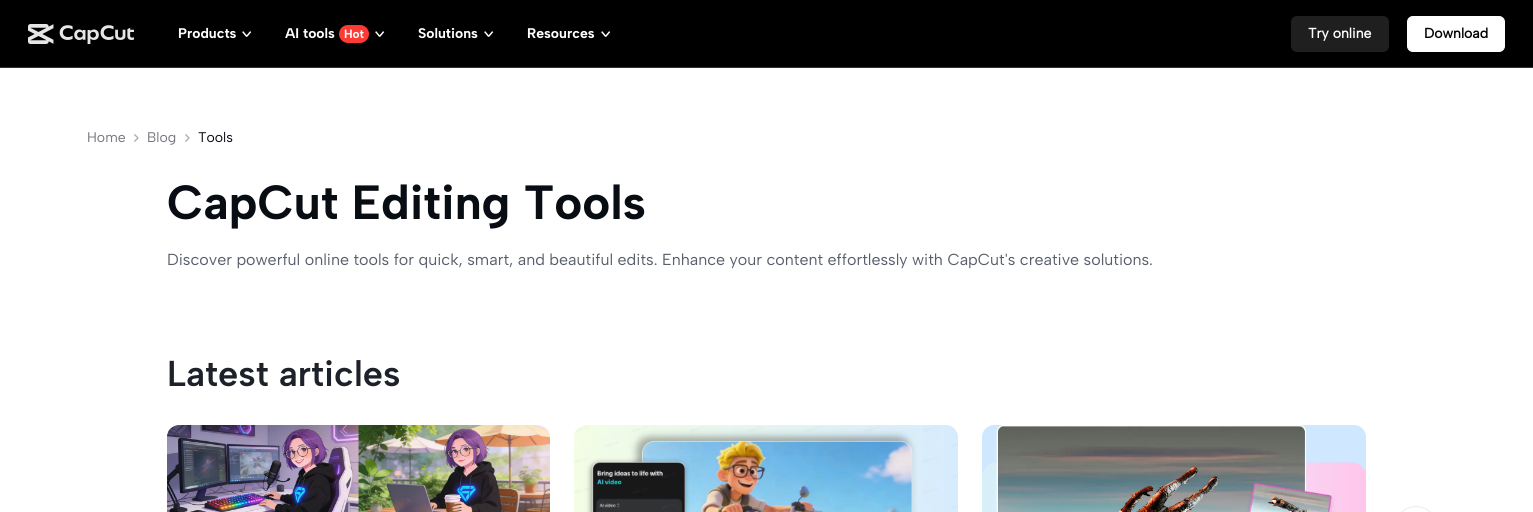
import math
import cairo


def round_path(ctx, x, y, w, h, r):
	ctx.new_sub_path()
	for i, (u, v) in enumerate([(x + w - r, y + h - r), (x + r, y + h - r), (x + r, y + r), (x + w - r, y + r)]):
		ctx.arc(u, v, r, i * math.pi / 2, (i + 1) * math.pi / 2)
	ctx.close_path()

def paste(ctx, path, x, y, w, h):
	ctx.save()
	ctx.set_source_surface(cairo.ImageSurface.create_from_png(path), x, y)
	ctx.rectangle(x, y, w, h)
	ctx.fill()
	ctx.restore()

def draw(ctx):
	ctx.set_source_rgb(1, 1, 1)
	ctx.paint()
	ctx.set_source_rgb(0, 0, 0)
	ctx.rectangle(0, 0, 1533, 67)
	ctx.fill()
	ctx.set_source_rgb(0.2, 0.2, 0.2)
	ctx.rectangle(0, 67, 1533, 1)
	ctx.fill()
	paste(ctx, 'media/1.png', 28, 24, 106, 20)
	ctx.select_font_face('Albert Sans', cairo.FONT_SLANT_NORMAL, cairo.FONT_WEIGHT_BOLD)
	ctx.set_font_size(14)
	ctx.set_source_rgb(1, 1, 1)
	ctx.move_to(178, 38)
	ctx.show_text('Products')
	paste(ctx, 'media/2.png', 242, 31, 10, 6)
	ctx.move_to(285, 38)
	ctx.show_text('AI tools')
	ctx.set_source_rgb(0.984, 0.231, 0.204)
	round_path(ctx, 339, 25, 30, 18, 9)
	ctx.fill()
	ctx.set_font_size(12)
	ctx.set_source_rgb(1, 1, 1)
	ctx.move_to(344, 38)
	ctx.show_text('Hot')
	paste(ctx, 'media/2.png', 375, 31, 10, 6)
	ctx.set_font_size(14)
	ctx.move_to(418, 38)
	ctx.show_text('Solutions')
	paste(ctx, 'media/2.png', 484, 31, 10, 6)
	ctx.move_to(527, 38)
	ctx.show_text('Resources')
	paste(ctx, 'media/2.png', 601, 31, 10, 6)
	ctx.set_source_rgb(0.122, 0.122, 0.122)
	round_path(ctx, 1291, 16, 98, 36, 6)
	ctx.fill()
	ctx.select_font_face('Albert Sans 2', cairo.FONT_SLANT_NORMAL, cairo.FONT_WEIGHT_BOLD)
	ctx.set_source_rgb(1, 1, 1)
	ctx.move_to(1308, 38)
	ctx.show_text('Try online')
	round_path(ctx, 1407.5, 16.5, 97, 35, 5.5)
	ctx.fill_preserve()
	ctx.set_line_width(1)
	ctx.stroke()
	ctx.set_source_rgb(0, 0, 0)
	ctx.move_to(1424, 38)
	ctx.show_text('Download')
	ctx.select_font_face('Albert Sans')
	ctx.set_source_rgb(0.459, 0.459, 0.502)
	ctx.move_to(87, 142)
	ctx.show_text('Home')
	paste(ctx, 'media/3.png', 134, 134, 5, 8)
	ctx.move_to(147, 142)
	ctx.show_text('Blog')
	paste(ctx, 'media/3.png', 185, 134, 5, 8)
	ctx.set_source_rgb(0.035, 0.047, 0.078)
	ctx.move_to(198, 142)
	ctx.show_text('Tools')
	ctx.select_font_face('Albert Sans', cairo.FONT_SLANT_NORMAL, cairo.FONT_WEIGHT_BOLD)
	ctx.set_font_size(48)
	ctx.move_to(167, 219)
	ctx.show_text('CapCut Editing Tools')
	ctx.select_font_face('Albert Sans')
	ctx.set_font_size(16)
	ctx.set_source_rgb(0.345, 0.373, 0.42)
	ctx.move_to(167, 265)
	ctx.show_text('Discover powerful online tools for quick, smart, and beautiful edits. Enhance your content effortlessly with CapCut\'s creative solutions.')
	ctx.select_font_face('Albert Sans SemiBold')
	ctx.set_font_size(36)
	ctx.set_source_rgb(0.114, 0.129, 0.161)
	ctx.move_to(167, 386)
	ctx.show_text('Latest articles')
	paste(ctx, 'media/4.png', 167, 425, 383, 87)
	gradient = cairo.LinearGradient(574, 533, 958, 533)
	gradient.add_color_stop_rgba(0, 0.953, 0.996, 0.906, 1)
	gradient.add_color_stop_rgba(1, 0.843, 0.925, 1, 1)
	ctx.set_source(gradient)
	ctx.new_path()
	ctx.move_to(586, 425)
	ctx.line_to(946, 425)
	ctx.curve_to(952.5, 425, 958, 430.5, 958, 437)
	ctx.line_to(958, 512)
	ctx.line_to(574, 512)
	ctx.line_to(574, 437)
	ctx.curve_to(574, 430.5, 579.5, 425, 586, 425)
	ctx.close_path()
	ctx.fill()
	paste(ctx, 'media/5.png', 574, 426, 384, 86)
	ctx.set_source_rgb(0.812, 0.906, 1)
	ctx.new_path()
	ctx.move_to(994, 425)
	ctx.line_to(1354, 425)
	ctx.curve_to(1360.5, 425, 1366, 430.5, 1366, 437)
	ctx.line_to(1366, 512)
	ctx.line_to(982, 512)
	ctx.line_to(982, 437)
	ctx.curve_to(982, 430.5, 987.5, 425, 994, 425)
	ctx.close_path()
	ctx.fill()
	paste(ctx, 'media/6.png', 982, 425, 384, 87)
	round_path(ctx, 1395.5, 506.5, 41, 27, 20.5)
	ctx.set_source_rgb(0.922, 0.922, 0.922)
	ctx.stroke()


surface = cairo.ImageSurface(cairo.FORMAT_RGB24, 1533, 512)
ctx = cairo.Context(surface)
options = cairo.FontOptions()
options.set_hint_metrics(cairo.HINT_METRICS_OFF)
options.set_hint_style(cairo.HINT_STYLE_NONE)
ctx.set_font_options(options)
ctx.set_miter_limit(4)
draw(ctx)
surface.write_to_png('image.png')
